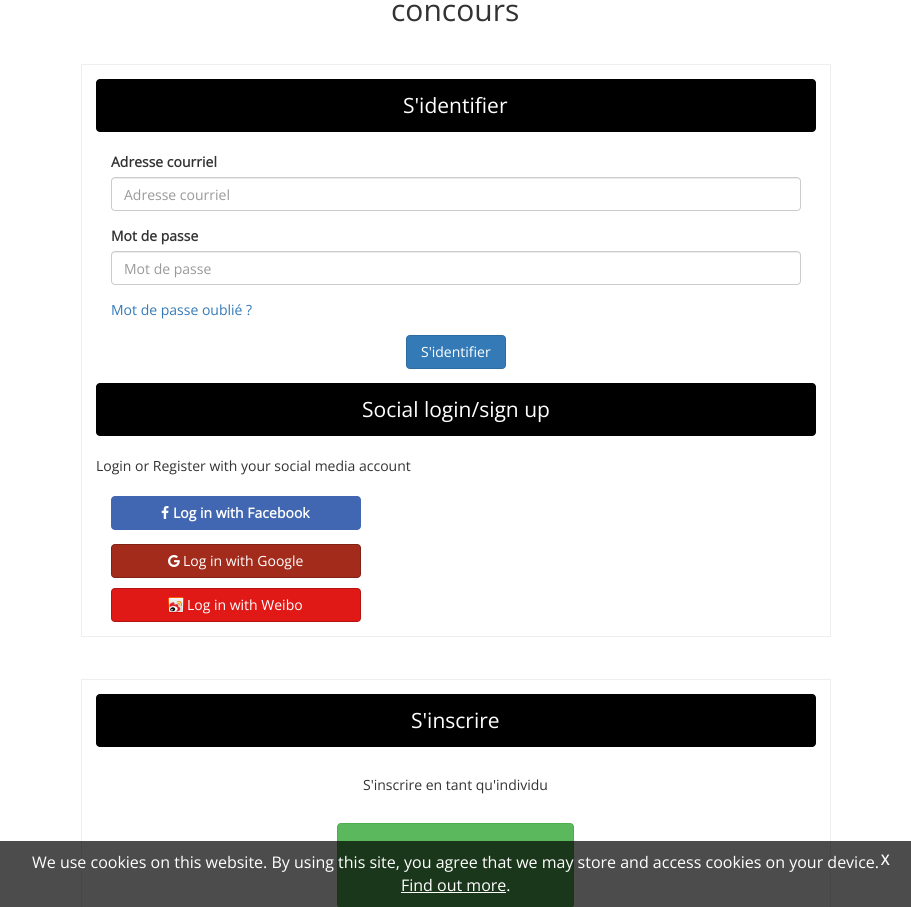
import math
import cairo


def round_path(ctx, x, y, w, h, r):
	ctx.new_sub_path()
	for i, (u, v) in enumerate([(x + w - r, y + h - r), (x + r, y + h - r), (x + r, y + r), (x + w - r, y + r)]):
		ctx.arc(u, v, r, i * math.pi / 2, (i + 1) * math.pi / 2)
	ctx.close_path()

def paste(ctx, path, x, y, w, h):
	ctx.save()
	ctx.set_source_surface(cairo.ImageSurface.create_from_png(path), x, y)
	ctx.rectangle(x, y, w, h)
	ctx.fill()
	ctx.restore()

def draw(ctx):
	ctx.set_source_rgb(1, 1, 1)
	ctx.paint()
	ctx.select_font_face('Open Sans')
	ctx.set_font_size(30)
	ctx.set_source_rgb(0.2, 0.2, 0.2)
	ctx.move_to(391, 21)
	ctx.show_text('concours')
	ctx.rectangle(81.5, 64.5, 749, 572)
	ctx.set_source_rgb(0.933, 0.933, 0.933)
	ctx.set_line_width(1)
	ctx.stroke()
	ctx.set_source_rgb(0, 0, 0)
	round_path(ctx, 96, 79, 720, 53, 4)
	ctx.fill()
	ctx.set_font_size(21)
	ctx.set_source_rgb(1, 1, 1)
	ctx.move_to(403, 113)
	ctx.show_text('S\'identifier')
	ctx.select_font_face('Open Sans', cairo.FONT_SLANT_NORMAL, cairo.FONT_WEIGHT_BOLD)
	ctx.set_font_size(14)
	ctx.set_source_rgb(0.2, 0.2, 0.2)
	ctx.move_to(111, 167)
	ctx.show_text('Adresse courriel')
	ctx.set_source_rgb(0.925, 0.925, 0.925)
	ctx.new_path()
	ctx.move_to(115, 179)
	ctx.line_to(797, 179)
	ctx.curve_to(799, 179, 800, 180, 800, 182)
	ctx.line_to(800, 181)
	ctx.curve_to(800, 179, 799, 178, 797, 178)
	ctx.line_to(115, 178)
	ctx.curve_to(113, 178, 112, 179, 112, 181)
	ctx.line_to(112, 182)
	ctx.curve_to(112, 180, 113, 179, 115, 179)
	ctx.close_path()
	ctx.fill()
	round_path(ctx, 111.5, 177.5, 689, 33, 3.5)
	ctx.set_source_rgb(0.8, 0.8, 0.8)
	ctx.stroke()
	ctx.select_font_face('Open Sans')
	ctx.set_source_rgb(0.6, 0.6, 0.6)
	ctx.move_to(124, 200)
	ctx.show_text('Adresse courriel')
	ctx.select_font_face('Open Sans', cairo.FONT_SLANT_NORMAL, cairo.FONT_WEIGHT_BOLD)
	ctx.set_source_rgb(0.2, 0.2, 0.2)
	ctx.move_to(111, 241)
	ctx.show_text('Mot de passe')
	ctx.set_source_rgb(0.925, 0.925, 0.925)
	ctx.new_path()
	ctx.move_to(115, 253)
	ctx.line_to(797, 253)
	ctx.curve_to(799, 253, 800, 254, 800, 256)
	ctx.line_to(800, 255)
	ctx.curve_to(800, 253, 799, 252, 797, 252)
	ctx.line_to(115, 252)
	ctx.curve_to(113, 252, 112, 253, 112, 255)
	ctx.line_to(112, 256)
	ctx.curve_to(112, 254, 113, 253, 115, 253)
	ctx.close_path()
	ctx.fill()
	round_path(ctx, 111.5, 251.5, 689, 33, 3.5)
	ctx.set_source_rgb(0.8, 0.8, 0.8)
	ctx.stroke()
	ctx.select_font_face('Open Sans')
	ctx.set_source_rgb(0.6, 0.6, 0.6)
	ctx.move_to(124, 274)
	ctx.show_text('Mot de passe')
	ctx.set_source_rgb(0.2, 0.478, 0.718)
	ctx.move_to(111, 315)
	ctx.show_text('Mot de passe oublié ?')
	round_path(ctx, 406.5, 335.5, 99, 33, 3.5)
	ctx.fill_preserve()
	ctx.set_source_rgb(0.18, 0.427, 0.643)
	ctx.stroke()
	ctx.set_source_rgb(1, 1, 1)
	ctx.move_to(421, 357)
	ctx.show_text('S\'identifier')
	ctx.set_source_rgb(0, 0, 0)
	round_path(ctx, 96, 383, 720, 53, 4)
	ctx.fill()
	ctx.set_font_size(21)
	ctx.set_source_rgb(1, 1, 1)
	ctx.move_to(362, 417)
	ctx.show_text('Social login/sign up')
	ctx.set_font_size(14)
	ctx.set_source_rgb(0.2, 0.2, 0.2)
	ctx.move_to(96, 471)
	ctx.show_text('Login or Register with your social media account')
	ctx.set_source_rgb(0.259, 0.404, 0.698)
	round_path(ctx, 111, 496, 250, 34, 4)
	ctx.fill()
	paste(ctx, 'media/1.png', 161, 506, 8, 13)
	ctx.select_font_face('Open Sans', cairo.FONT_SLANT_NORMAL, cairo.FONT_WEIGHT_BOLD)
	ctx.set_source_rgb(1, 1, 1)
	ctx.move_to(173, 518)
	ctx.show_text('Log in with Facebook')
	ctx.set_source_rgb(0.639, 0.169, 0.11)
	round_path(ctx, 111, 544, 250, 34, 4)
	ctx.fill()
	round_path(ctx, 111.5, 544.5, 249, 33, 3.5)
	ctx.set_source_rgba(0, 0, 0, 0.2)
	ctx.stroke()
	paste(ctx, 'media/2.png', 168, 555, 12, 12)
	ctx.select_font_face('Open Sans')
	ctx.set_source_rgb(1, 1, 1)
	ctx.move_to(183, 566)
	ctx.show_text('Log in with Google')
	ctx.set_source_rgb(0.878, 0.098, 0.086)
	round_path(ctx, 111, 588, 250, 34, 4)
	ctx.fill()
	round_path(ctx, 111.5, 588.5, 249, 33, 3.5)
	ctx.set_source_rgba(0, 0, 0, 0.2)
	ctx.stroke()
	paste(ctx, 'media/3.png', 168, 597, 16, 16)
	ctx.set_source_rgb(1, 1, 1)
	ctx.move_to(187, 610)
	ctx.show_text('Log in with Weibo')
	ctx.rectangle(81.5, 679.5, 749, 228)
	ctx.set_source_rgb(0.933, 0.933, 0.933)
	ctx.stroke()
	ctx.set_source_rgb(0, 0, 0)
	round_path(ctx, 96, 694, 720, 53, 4)
	ctx.fill()
	ctx.set_font_size(21)
	ctx.set_source_rgb(1, 1, 1)
	ctx.move_to(411, 728)
	ctx.show_text('S\'inscrire')
	ctx.set_font_size(14)
	ctx.set_source_rgb(0.2, 0.2, 0.2)
	ctx.move_to(363, 790)
	ctx.show_text('S\'inscrire en tant qu\'individu')
	ctx.set_source_rgb(0.361, 0.722, 0.361)
	round_path(ctx, 337.5, 823.5, 236, 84, 3.5)
	ctx.fill_preserve()
	ctx.set_source_rgb(0.298, 0.682, 0.298)
	ctx.stroke()
	ctx.set_source_rgba(0, 0, 0, 0.7)
	ctx.rectangle(0, 841, 911, 66)
	ctx.fill()
	ctx.set_font_size(16)
	ctx.set_source_rgb(1, 1, 1)
	ctx.move_to(32, 868)
	ctx.show_text('We use cookies on this website. By using this site, you agree that we may store and access cookies on your device.')
	ctx.move_to(401, 891)
	ctx.show_text('Find out more.')
	ctx.rectangle(401, 892, 105, 1)
	ctx.fill()
	ctx.select_font_face('Open Sans', cairo.FONT_SLANT_NORMAL, cairo.FONT_WEIGHT_BOLD)
	ctx.set_font_size(14)
	ctx.move_to(881, 865)
	ctx.show_text('X')


surface = cairo.ImageSurface(cairo.FORMAT_RGB24, 911, 907)
ctx = cairo.Context(surface)
options = cairo.FontOptions()
options.set_hint_metrics(cairo.HINT_METRICS_OFF)
options.set_hint_style(cairo.HINT_STYLE_NONE)
ctx.set_font_options(options)
ctx.set_miter_limit(4)
draw(ctx)
surface.write_to_png('image.png')
